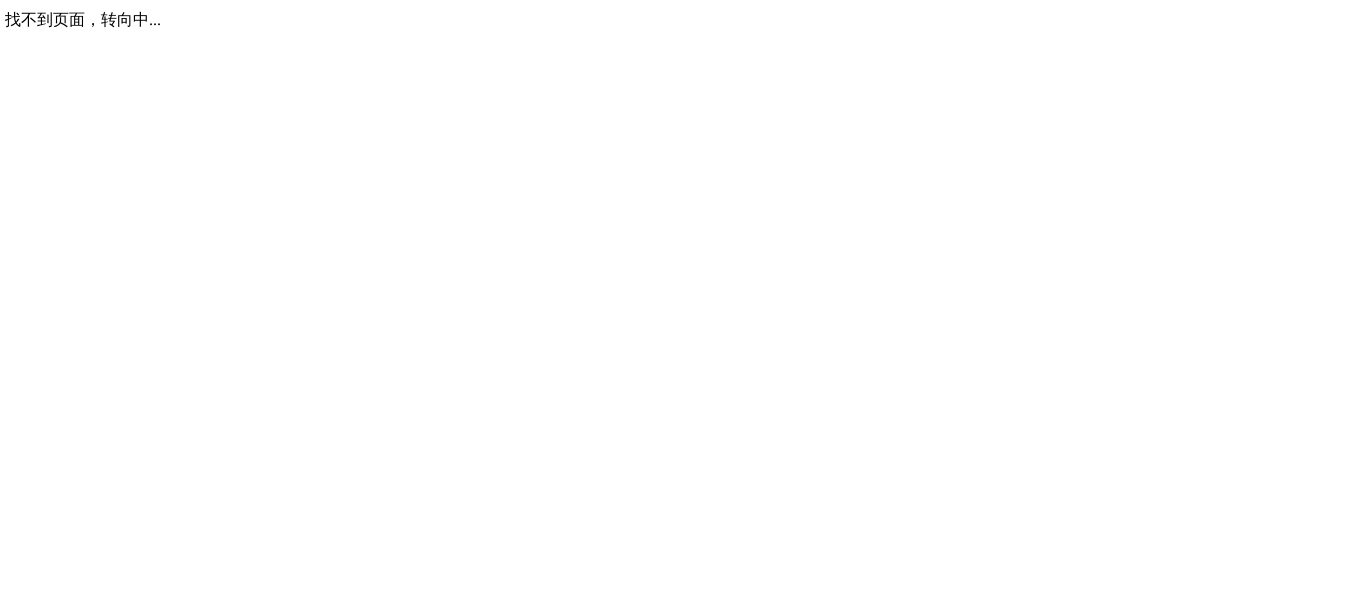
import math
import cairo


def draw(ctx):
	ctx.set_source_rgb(1, 1, 1)
	ctx.paint()
	ctx.select_font_face('WenQuanYi Zen Hei Medium')
	ctx.set_font_size(16)
	ctx.set_source_rgb(0, 0, 0)
	ctx.move_to(5, 25)
	ctx.show_text('找不到页面，转向中')
	ctx.select_font_face('Liberation Serif')
	ctx.move_to(149, 25)
	ctx.show_text('...')


surface = cairo.ImageSurface(cairo.FORMAT_RGB24, 1370, 608)
ctx = cairo.Context(surface)
options = cairo.FontOptions()
options.set_hint_metrics(cairo.HINT_METRICS_OFF)
options.set_hint_style(cairo.HINT_STYLE_NONE)
ctx.set_font_options(options)
ctx.set_miter_limit(4)
draw(ctx)
surface.write_to_png('image.png')
